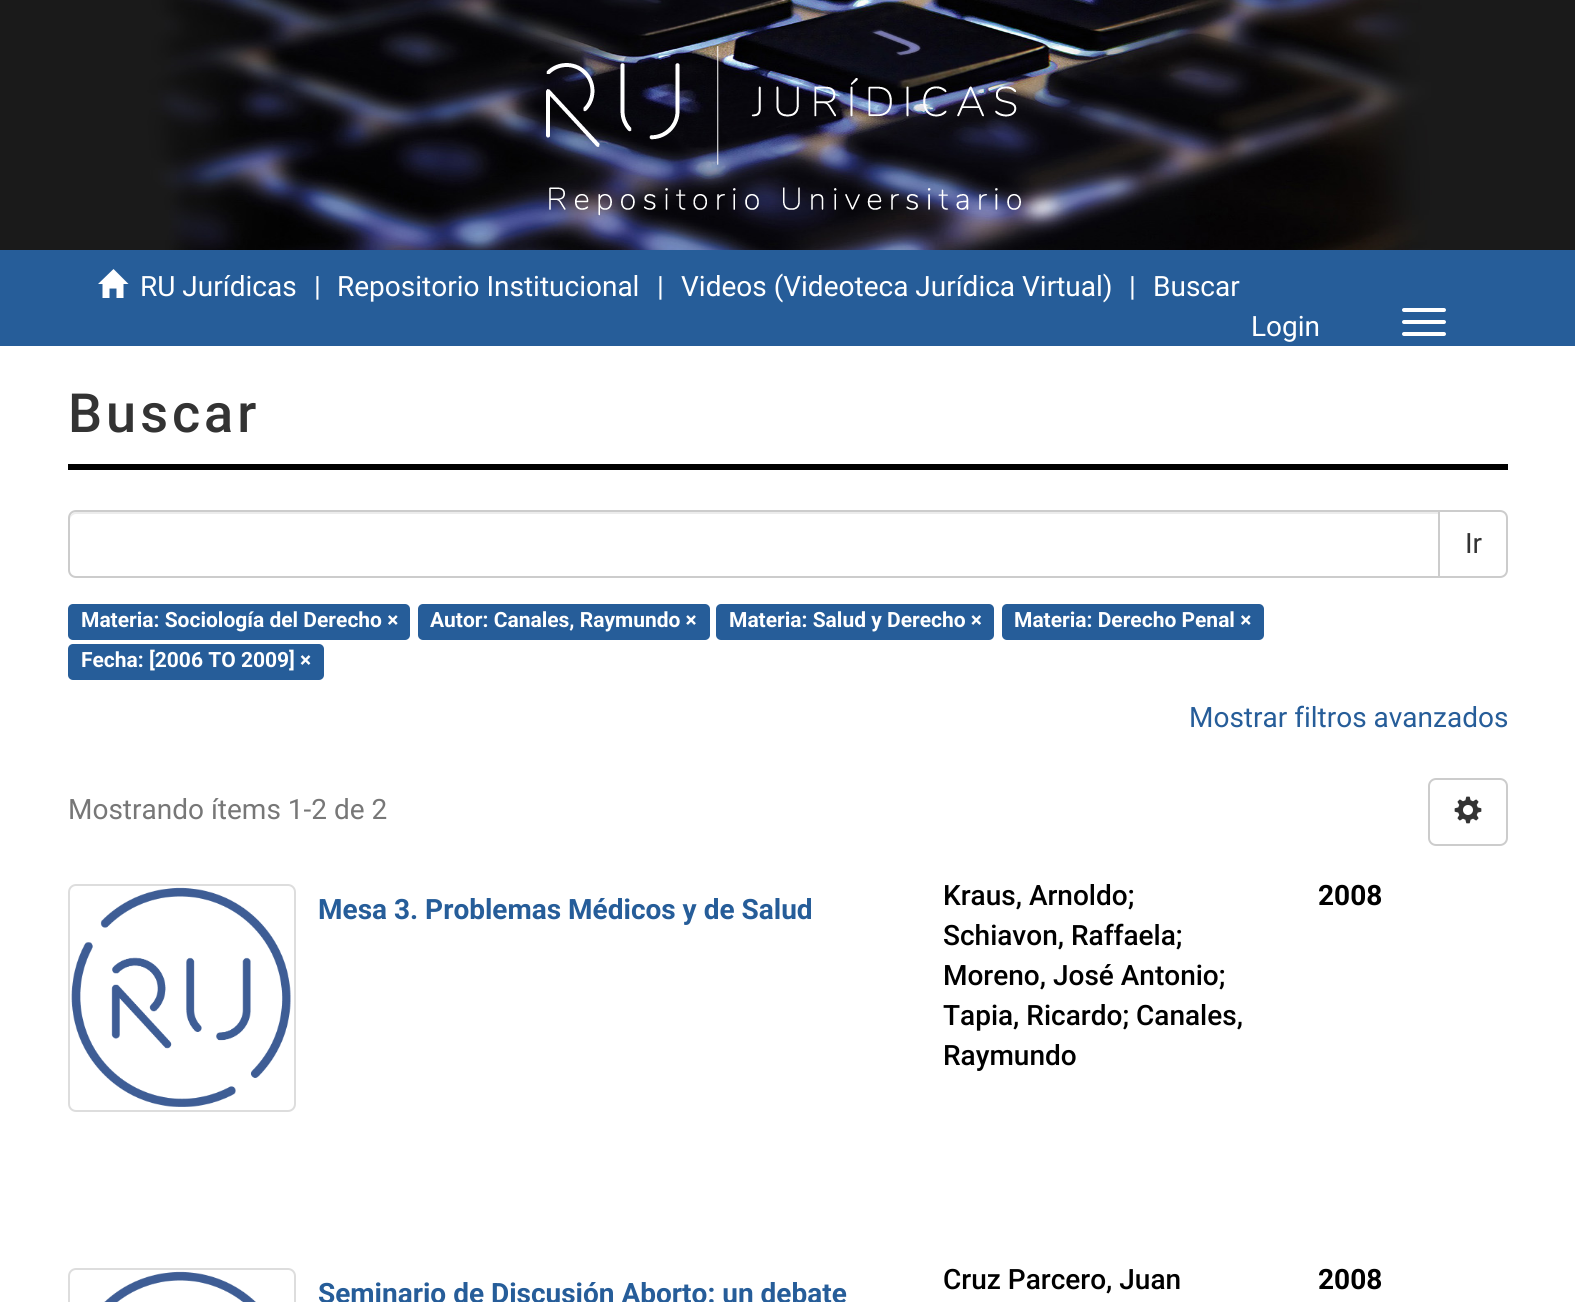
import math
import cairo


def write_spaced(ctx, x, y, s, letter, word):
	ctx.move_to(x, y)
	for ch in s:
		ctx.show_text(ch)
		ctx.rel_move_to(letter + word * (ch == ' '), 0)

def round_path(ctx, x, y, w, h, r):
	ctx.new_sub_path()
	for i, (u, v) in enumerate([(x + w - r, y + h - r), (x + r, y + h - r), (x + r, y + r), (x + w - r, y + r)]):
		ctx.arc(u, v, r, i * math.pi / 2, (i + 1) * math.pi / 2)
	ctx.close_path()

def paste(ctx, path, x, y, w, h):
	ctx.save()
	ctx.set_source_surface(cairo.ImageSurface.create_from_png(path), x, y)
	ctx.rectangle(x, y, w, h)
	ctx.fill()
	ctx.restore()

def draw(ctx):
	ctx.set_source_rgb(1, 1, 1)
	ctx.paint()
	paste(ctx, 'media/1.png', 0, 0, 1575, 250)
	paste(ctx, 'media/2.png', 546, 46, 475, 170)
	ctx.set_source_rgb(0.149, 0.365, 0.6)
	ctx.rectangle(0, 250, 1575, 96)
	ctx.fill()
	ctx.set_source_rgb(1, 1, 1)
	ctx.new_path()
	ctx.move_to(98, 284)
	ctx.line_to(113.5, 269)
	ctx.line_to(128.5, 284)
	ctx.line_to(123.5, 284)
	ctx.line_to(123.5, 298)
	ctx.line_to(116.5, 298)
	ctx.line_to(116.5, 288.5)
	ctx.line_to(109.5, 288.5)
	ctx.line_to(109.5, 298)
	ctx.line_to(102.5, 298)
	ctx.line_to(102.5, 284)
	ctx.close_path()
	ctx.fill()
	ctx.select_font_face('Roboto')
	ctx.set_font_size(28)
	for x, y, s in [
		(140, 296, 'RU Jurídicas'),
		(314, 296, '|'),
		(337, 296, 'Repositorio Institucional'),
		(657, 296, '|'),
		(681, 296, 'Videos (Videoteca Jurídica Virtual)'),
		(1129, 296, '|'),
		(1153, 296, 'Buscar'),
		(1251, 336, 'Login'),
	]:
		ctx.move_to(x, y)
		ctx.show_text(s)
	round_path(ctx, 1402, 308, 44, 4, 2)
	ctx.fill()
	round_path(ctx, 1402, 320, 44, 4, 2)
	ctx.fill()
	round_path(ctx, 1402, 332, 44, 4, 2)
	ctx.fill()
	ctx.set_source_rgb(0, 0, 0)
	ctx.rectangle(68, 464, 1440, 6)
	ctx.fill()
	ctx.select_font_face('Roboto Medium')
	ctx.set_font_size(54)
	ctx.set_source_rgb(0.2, 0.2, 0.2)
	write_spaced(ctx, 68, 432, 'Buscar', 4, 0)
	ctx.new_path()
	ctx.move_to(1439, 511)
	ctx.line_to(1500, 511)
	ctx.curve_to(1504, 511, 1507, 514, 1507, 518)
	ctx.line_to(1507, 570)
	ctx.curve_to(1507, 574, 1504, 577, 1500, 577)
	ctx.line_to(1439, 577)
	ctx.close_path()
	ctx.set_source_rgb(0.8, 0.8, 0.8)
	ctx.stroke()
	ctx.set_source_rgb(1, 1, 1)
	ctx.new_path()
	ctx.move_to(76, 510)
	ctx.line_to(1440, 510)
	ctx.line_to(1440, 578)
	ctx.line_to(76, 578)
	ctx.curve_to(71.5, 578, 68, 574.5, 68, 570)
	ctx.line_to(68, 518)
	ctx.curve_to(68, 513.5, 71.5, 510, 76, 510)
	ctx.close_path()
	ctx.fill()
	ctx.set_source_rgb(0.925, 0.925, 0.925)
	ctx.new_path()
	ctx.move_to(76, 514)
	ctx.line_to(1438, 514)
	ctx.line_to(1438, 512)
	ctx.line_to(76, 512)
	ctx.curve_to(73, 512, 70, 515, 70, 518)
	ctx.line_to(70, 520)
	ctx.curve_to(70, 517, 73, 514, 76, 514)
	ctx.close_path()
	ctx.fill()
	ctx.new_path()
	ctx.move_to(76, 511)
	ctx.line_to(1439, 511)
	ctx.line_to(1439, 577)
	ctx.line_to(76, 577)
	ctx.curve_to(72, 577, 69, 574, 69, 570)
	ctx.line_to(69, 518)
	ctx.curve_to(69, 514, 72, 511, 76, 511)
	ctx.close_path()
	ctx.set_source_rgb(0.8, 0.8, 0.8)
	ctx.stroke()
	ctx.select_font_face('Roboto')
	ctx.set_font_size(28)
	ctx.set_source_rgb(0.2, 0.2, 0.2)
	ctx.move_to(1465, 553)
	ctx.show_text('Ir')
	ctx.set_source_rgb(0.149, 0.365, 0.6)
	round_path(ctx, 68, 604, 342, 36, 5)
	ctx.fill()
	ctx.select_font_face('Roboto', cairo.FONT_SLANT_NORMAL, cairo.FONT_WEIGHT_BOLD)
	ctx.set_font_size(21)
	ctx.set_source_rgb(1, 1, 1)
	ctx.move_to(81, 627)
	ctx.show_text('Materia: Sociología del Derecho ×')
	ctx.set_source_rgb(0.149, 0.365, 0.6)
	round_path(ctx, 418, 604, 292, 36, 5)
	ctx.fill()
	ctx.set_source_rgb(1, 1, 1)
	ctx.move_to(430, 627)
	ctx.show_text('Autor: Canales, Raymundo ×')
	ctx.set_source_rgb(0.149, 0.365, 0.6)
	round_path(ctx, 716, 604, 278, 36, 5)
	ctx.fill()
	ctx.set_source_rgb(1, 1, 1)
	ctx.move_to(729, 627)
	ctx.show_text('Materia: Salud y Derecho ×')
	ctx.set_source_rgb(0.149, 0.365, 0.6)
	round_path(ctx, 1002, 604, 262, 36, 5)
	ctx.fill()
	ctx.set_source_rgb(1, 1, 1)
	ctx.move_to(1014, 627)
	ctx.show_text('Materia: Derecho Penal ×')
	ctx.set_source_rgb(0.149, 0.365, 0.6)
	round_path(ctx, 68, 644, 256, 36, 5)
	ctx.fill()
	ctx.set_source_rgb(1, 1, 1)
	ctx.move_to(81, 667)
	ctx.show_text('Fecha: [2006 TO 2009] ×')
	ctx.select_font_face('Roboto')
	ctx.set_font_size(28)
	ctx.set_source_rgb(0.149, 0.365, 0.6)
	ctx.move_to(1189, 727)
	ctx.show_text('Mostrar filtros avanzados')
	ctx.set_source_rgb(0.467, 0.467, 0.467)
	ctx.move_to(68, 819)
	ctx.show_text('Mostrando ítems 1-2 de 2')
	round_path(ctx, 1429, 779, 78, 66, 7)
	ctx.set_source_rgb(0.8, 0.8, 0.8)
	ctx.stroke()
	paste(ctx, 'media/3.png', 1454, 796, 28, 28)
	paste(ctx, 'media/4.png', 71, 887, 220, 220)
	round_path(ctx, 69, 885, 226, 226, 7)
	ctx.set_source_rgb(0.867, 0.867, 0.867)
	ctx.stroke()
	ctx.select_font_face('Roboto Medium')
	ctx.set_source_rgb(0, 0, 0)
	for x, y, s in [
		(943, 905, 'Kraus, Arnoldo;'),
		(943, 945, 'Schiavon, Raffaela;'),
		(943, 985, 'Moreno, José Antonio;'),
		(943, 1025, 'Tapia, Ricardo; Canales,'),
		(943, 1065, 'Raymundo'),
	]:
		ctx.move_to(x, y)
		ctx.show_text(s)
	ctx.select_font_face('Roboto', cairo.FONT_SLANT_NORMAL, cairo.FONT_WEIGHT_BOLD)
	ctx.move_to(1318, 905)
	ctx.show_text('2008')
	ctx.set_source_rgb(0.149, 0.365, 0.6)
	ctx.move_to(318, 919)
	ctx.show_text('Mesa 3. Problemas Médicos y de Salud')
	paste(ctx, 'media/5.png', 104, 1271, 152, 31)
	round_path(ctx, 69, 1269, 226, 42, 7)
	ctx.set_source_rgb(0.867, 0.867, 0.867)
	ctx.stroke()
	ctx.select_font_face('Roboto Medium')
	ctx.set_source_rgb(0, 0, 0)
	ctx.move_to(943, 1289)
	ctx.show_text('Cruz Parcero, Juan')
	ctx.select_font_face('Roboto', cairo.FONT_SLANT_NORMAL, cairo.FONT_WEIGHT_BOLD)
	ctx.move_to(1318, 1289)
	ctx.show_text('2008')
	ctx.set_source_rgb(0.149, 0.365, 0.6)
	ctx.move_to(318, 1303)
	ctx.show_text('Seminario de Discusión Aborto: un debate')


surface = cairo.ImageSurface(cairo.FORMAT_RGB24, 1575, 1302)
ctx = cairo.Context(surface)
options = cairo.FontOptions()
options.set_hint_metrics(cairo.HINT_METRICS_OFF)
options.set_hint_style(cairo.HINT_STYLE_NONE)
ctx.set_font_options(options)
ctx.set_miter_limit(4)
draw(ctx)
surface.write_to_png('image.png')
